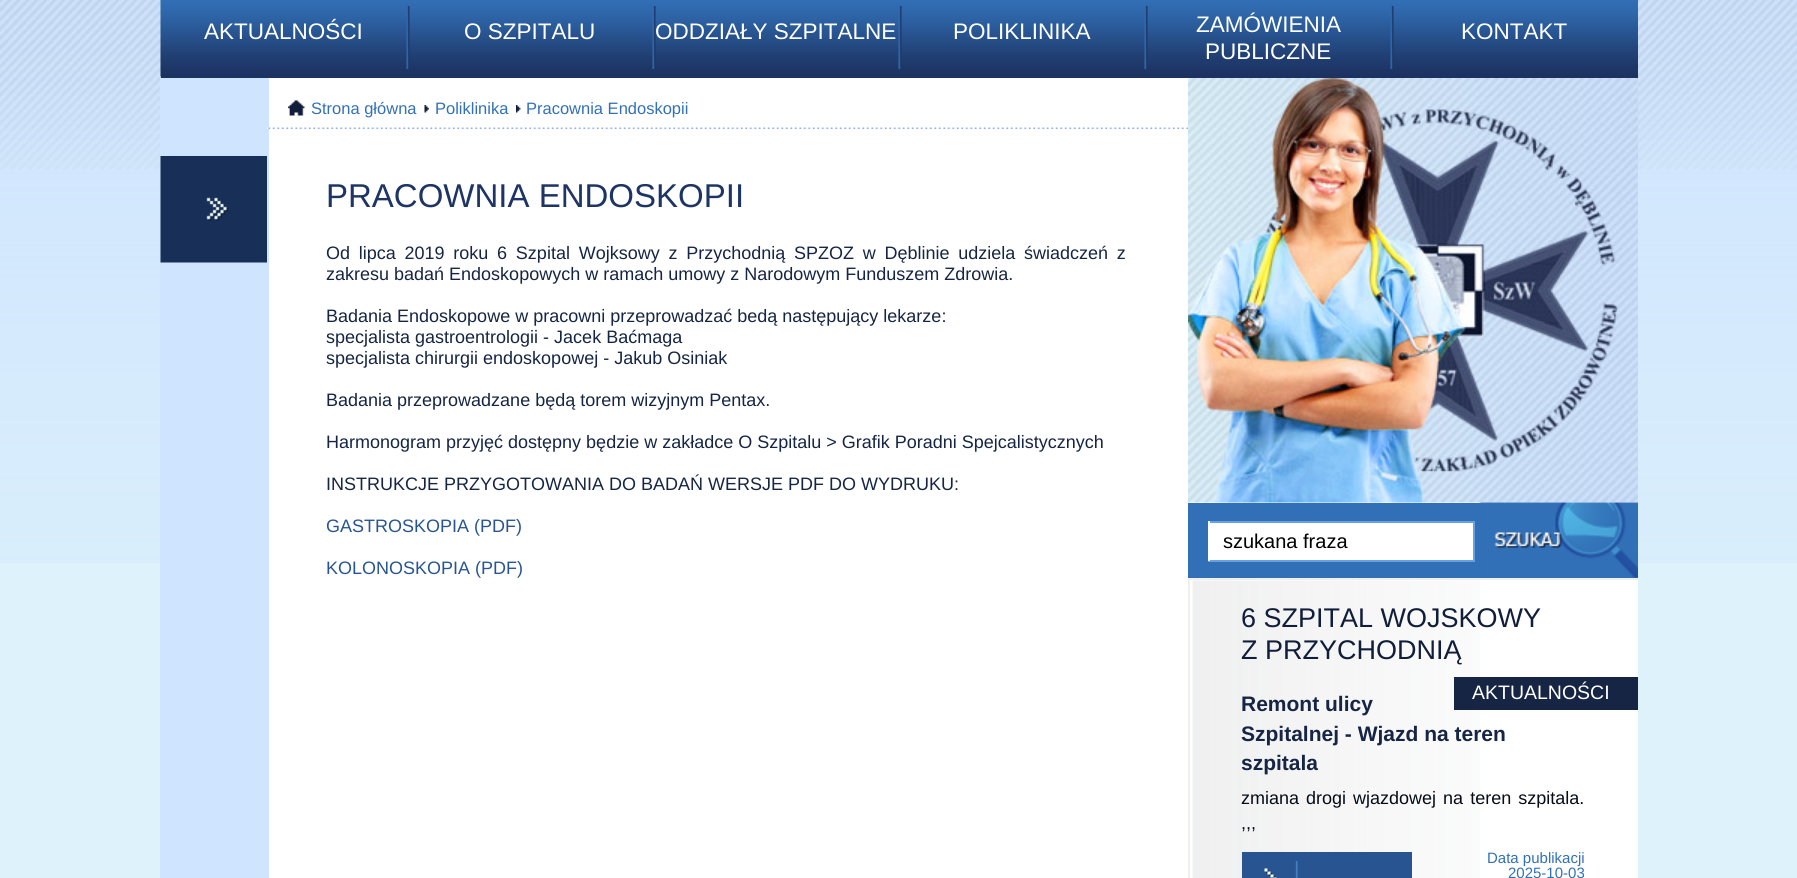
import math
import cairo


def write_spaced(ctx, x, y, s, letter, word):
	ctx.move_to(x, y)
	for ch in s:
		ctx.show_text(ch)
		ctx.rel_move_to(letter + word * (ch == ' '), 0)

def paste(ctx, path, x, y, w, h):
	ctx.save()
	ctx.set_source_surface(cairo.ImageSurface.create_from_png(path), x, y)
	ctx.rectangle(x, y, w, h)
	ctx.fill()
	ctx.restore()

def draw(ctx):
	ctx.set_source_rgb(0.867, 0.949, 0.98)
	ctx.paint()
	paste(ctx, 'media/1.png', 0, 0, 1797, 563)
	paste(ctx, 'media/2.png', 0, 0, 1797, 169)
	ctx.set_source_rgb(0.11, 0.2, 0.384)
	ctx.rectangle(161, 76, 1477, 2)
	ctx.fill()
	paste(ctx, 'media/3.png', 160, 0, 1478, 77)
	ctx.select_font_face('Liberation Sans')
	ctx.set_font_size(22.5)
	ctx.set_source_rgb(1, 1, 1)
	ctx.move_to(204, 39)
	ctx.show_text('AKTUALNOŚCI')
	paste(ctx, 'media/4.png', 406, 6, 4, 63)
	ctx.move_to(464, 39)
	ctx.show_text('O SZPITALU')
	paste(ctx, 'media/4.png', 652, 6, 4, 63)
	ctx.move_to(655, 39)
	ctx.show_text('ODDZIAŁY SZPITALNE')
	paste(ctx, 'media/4.png', 898, 6, 4, 63)
	ctx.move_to(953, 39)
	ctx.show_text('POLIKLINIKA')
	paste(ctx, 'media/4.png', 1144, 6, 4, 63)
	ctx.move_to(1196, 32)
	ctx.show_text('ZAMÓWIENIA')
	ctx.move_to(1205, 59)
	ctx.show_text('PUBLICZNE')
	paste(ctx, 'media/4.png', 1390, 6, 4, 63)
	ctx.move_to(1461, 39)
	ctx.show_text('KONTAKT')
	ctx.rectangle(269, 78, 1369, 800)
	ctx.fill()
	ctx.set_source_rgb(0.812, 0.894, 1)
	ctx.rectangle(160, 78, 109, 800)
	ctx.fill()
	paste(ctx, 'media/5.png', 267, 127, 921, 2)
	paste(ctx, 'media/6.png', 288, 100, 17, 16)
	ctx.set_font_size(16.5)
	ctx.set_source_rgb(0.196, 0.439, 0.718)
	ctx.move_to(311, 114)
	ctx.show_text('Strona główna')
	paste(ctx, 'media/7.png', 424, 105, 5, 8)
	ctx.move_to(435, 114)
	ctx.show_text('Poliklinika')
	paste(ctx, 'media/8.png', 516, 105, 5, 8)
	ctx.move_to(526, 114)
	ctx.show_text('Pracownia Endoskopii')
	paste(ctx, 'media/9.png', 160, 156, 107, 107)
	ctx.set_font_size(33)
	ctx.set_source_rgb(0.114, 0.204, 0.392)
	ctx.move_to(326, 207)
	ctx.show_text('PRACOWNIA ENDOSKOPII')
	ctx.set_font_size(18)
	ctx.set_source_rgb(0.086, 0.145, 0.267)
	write_spaced(ctx, 326, 259, 'Od lipca 2019 roku 6 Szpital Wojksowy z Przychodnią SPZOZ w Dęblinie udziela świadczeń z', 0, 3.75)
	for x, y, s in [
		(326, 280, 'zakresu badań Endoskopowych w ramach umowy z Narodowym Funduszem Zdrowia.'),
		(326, 322, 'Badania Endoskopowe w pracowni przeprowadzać bedą następujący lekarze:'),
		(326, 343, 'specjalista gastroentrologii - Jacek Baćmaga'),
		(326, 364, 'specjalista chirurgii endoskopowej - Jakub Osiniak'),
		(326, 406, 'Badania przeprowadzane będą torem wizyjnym Pentax.'),
		(326, 448, 'Harmonogram przyjęć dostępny będzie w zakładce O Szpitalu > Grafik Poradni Spejcalistycznych'),
		(326, 490, 'INSTRUKCJE PRZYGOTOWANIA DO BADAŃ WERSJE PDF DO WYDRUKU:'),
	]:
		ctx.move_to(x, y)
		ctx.show_text(s)
	ctx.set_source_rgb(0.157, 0.333, 0.569)
	ctx.move_to(326, 532)
	ctx.show_text('GASTROSKOPIA (PDF)')
	ctx.move_to(326, 574)
	ctx.show_text('KOLONOSKOPIA (PDF)')
	paste(ctx, 'media/10.png', 1188, 78, 450, 425)
	ctx.set_source_rgb(0.192, 0.435, 0.714)
	ctx.rectangle(1188, 503, 450, 75)
	ctx.fill()
	ctx.set_source_rgb(1, 1, 1)
	ctx.rectangle(1210, 523, 263, 37)
	ctx.fill()
	ctx.set_source_rgb(0.4, 0.631, 0.894)
	ctx.rectangle(1208, 521, 267, 2)
	ctx.rectangle(1473, 521, 2, 40)
	ctx.rectangle(1208, 560, 267, 2)
	ctx.fill()
	ctx.set_source_rgb(1, 1, 1)
	ctx.rectangle(1208, 521, 2, 40)
	ctx.fill()
	ctx.set_font_size(20)
	ctx.set_source_rgb(0, 0, 0)
	ctx.move_to(1223, 548)
	ctx.show_text('szukana fraza')
	paste(ctx, 'media/11.png', 1480, 502, 158, 76)
	ctx.set_source_rgb(0.937, 0.937, 0.941)
	ctx.rectangle(1188, 578, 450, 2)
	ctx.fill()
	ctx.rectangle(1188, 578, 2, 300)
	ctx.fill()
	paste(ctx, 'media/12.png', 1192, 580, 288, 298)
	ctx.set_font_size(27)
	ctx.set_source_rgb(0.067, 0.118, 0.227)
	ctx.move_to(1241, 627)
	ctx.show_text('6 SZPITAL WOJSKOWY')
	ctx.move_to(1241, 659)
	ctx.show_text('Z PRZYCHODNIĄ')
	ctx.set_source_rgb(0.086, 0.145, 0.267)
	ctx.rectangle(1454, 677, 184, 33)
	ctx.fill()
	ctx.set_font_size(19.5)
	ctx.set_source_rgb(1, 1, 1)
	ctx.move_to(1472, 699)
	ctx.show_text('AKTUALNOŚCI')
	ctx.select_font_face('Liberation Sans', cairo.FONT_SLANT_NORMAL, cairo.FONT_WEIGHT_BOLD)
	ctx.set_font_size(21)
	ctx.set_source_rgb(0.086, 0.145, 0.267)
	for x, y, s in [
		(1241, 711, 'Remont ulicy'),
		(1241, 741, 'Szpitalnej - Wjazd na teren'),
		(1241, 770, 'szpitala'),
	]:
		ctx.move_to(x, y)
		ctx.show_text(s)
	ctx.select_font_face('Liberation Sans')
	ctx.set_font_size(18)
	ctx.set_source_rgb(0.024, 0.047, 0.094)
	write_spaced(ctx, 1241, 804, 'zmiana drogi wjazdowej na teren szpitala.', 0, 2)
	ctx.move_to(1241, 829)
	ctx.show_text(',,,')
	ctx.set_source_rgb(0.157, 0.333, 0.569)
	ctx.rectangle(1242, 852, 170, 26)
	ctx.fill()
	paste(ctx, 'media/13.png', 1264, 861, 34, 17)
	ctx.set_font_size(15)
	ctx.set_source_rgb(0.196, 0.439, 0.718)
	ctx.move_to(1487, 863)
	ctx.show_text('Data publikacji')
	ctx.move_to(1508, 878)
	ctx.show_text('2025-10-03')


surface = cairo.ImageSurface(cairo.FORMAT_RGB24, 1797, 878)
ctx = cairo.Context(surface)
options = cairo.FontOptions()
options.set_hint_metrics(cairo.HINT_METRICS_OFF)
options.set_hint_style(cairo.HINT_STYLE_NONE)
ctx.set_font_options(options)
ctx.set_miter_limit(4)
draw(ctx)
surface.write_to_png('image.png')
